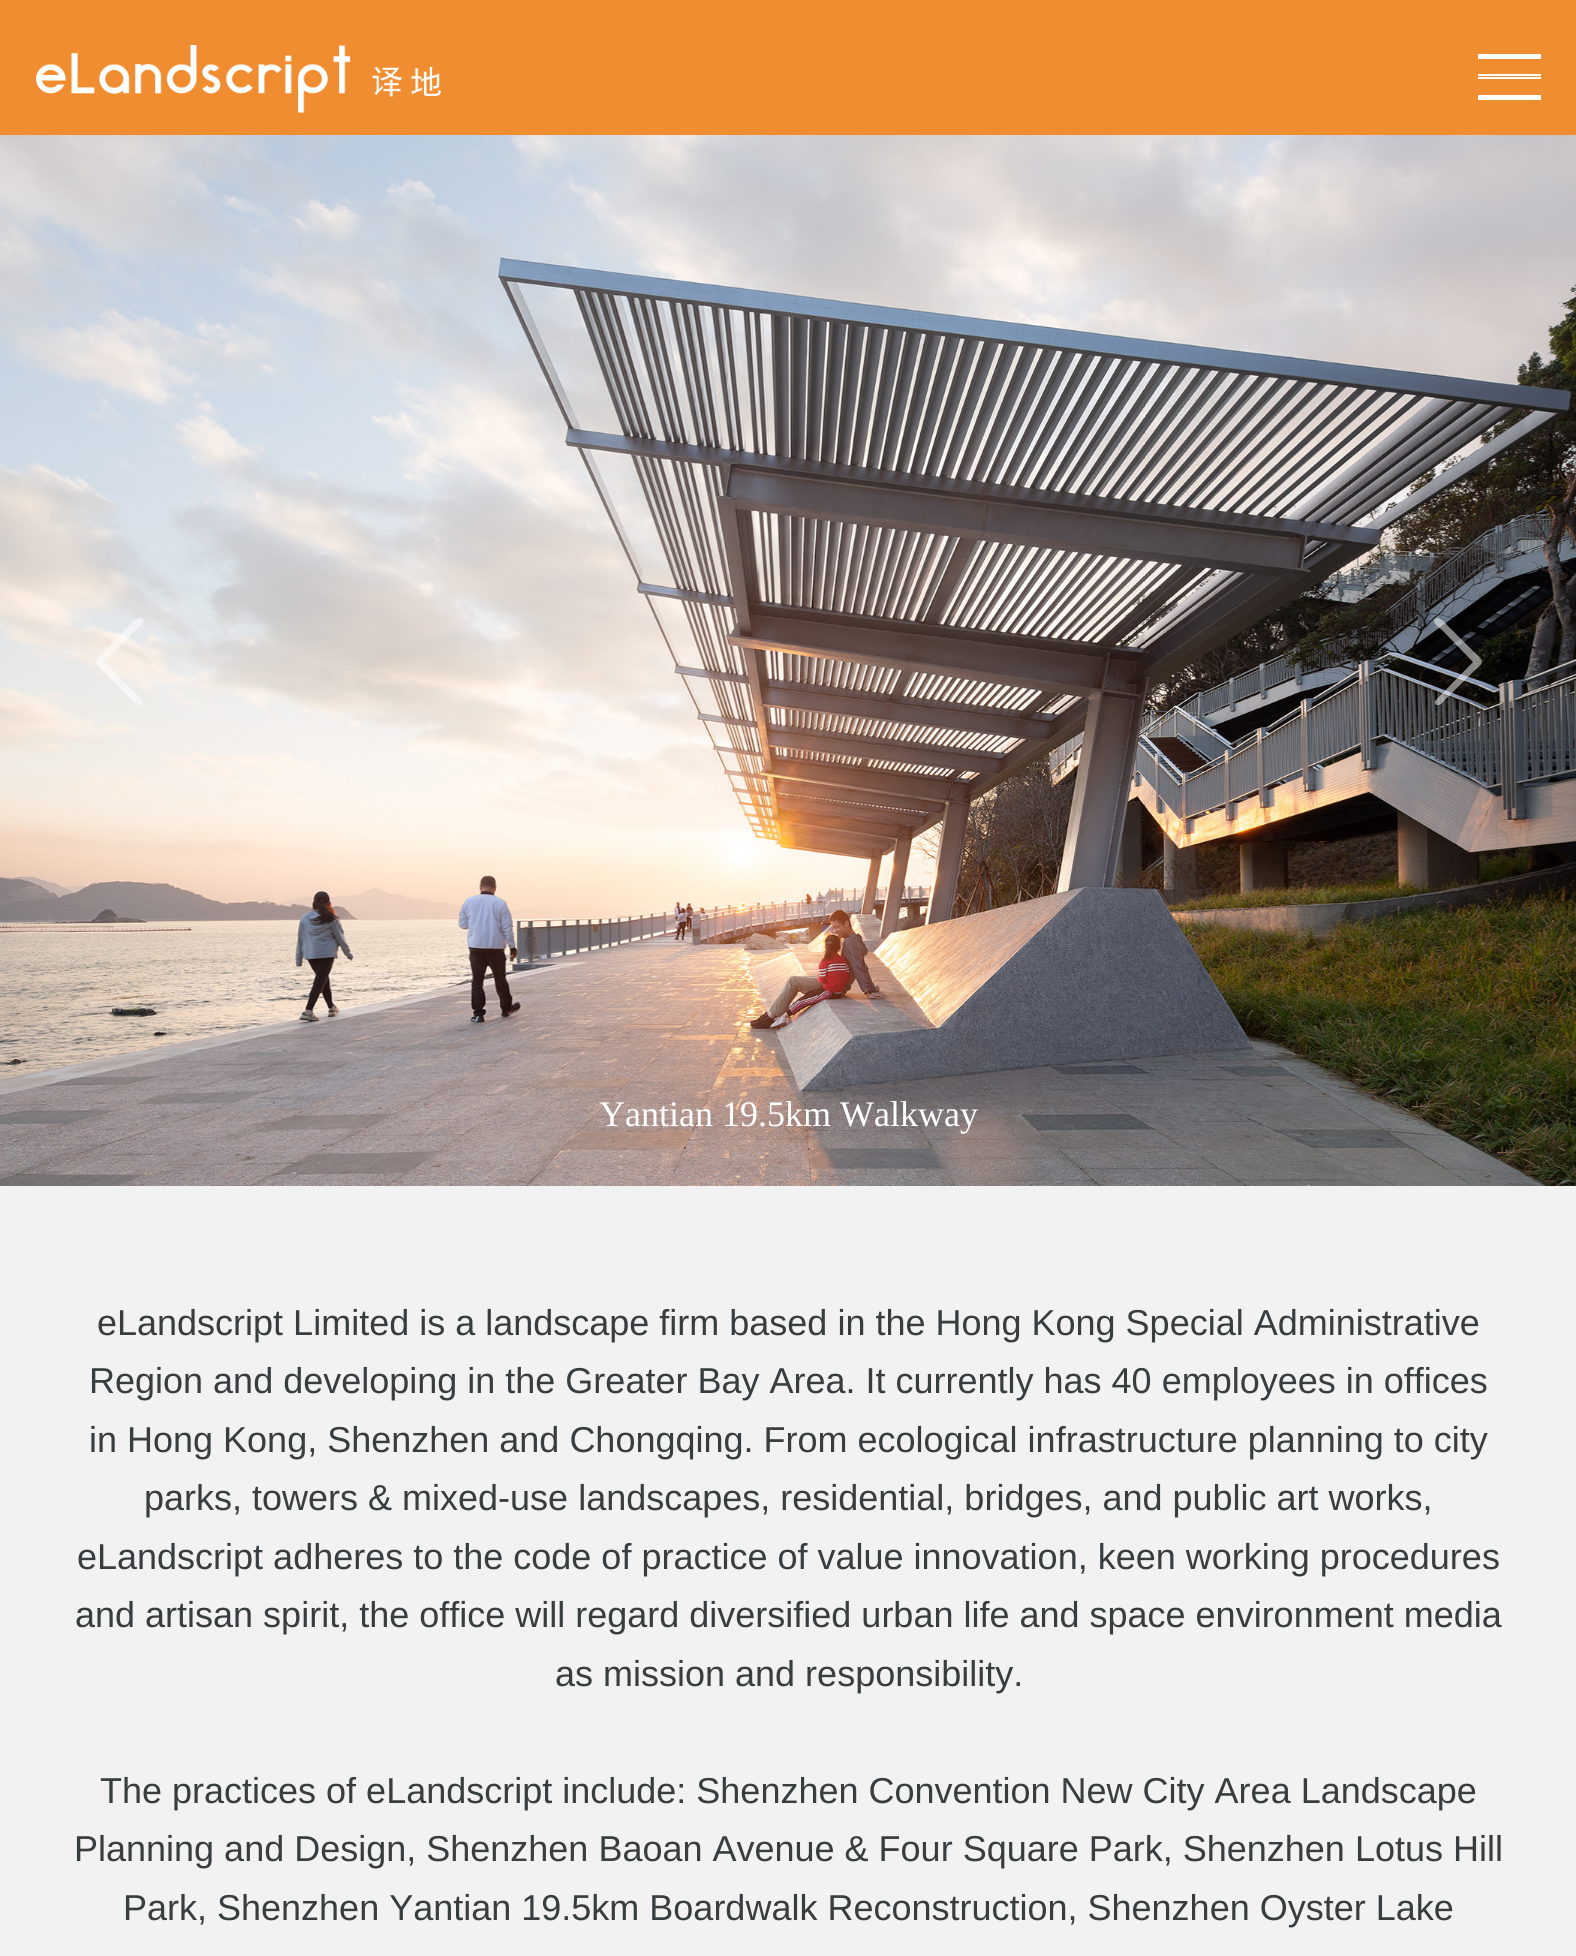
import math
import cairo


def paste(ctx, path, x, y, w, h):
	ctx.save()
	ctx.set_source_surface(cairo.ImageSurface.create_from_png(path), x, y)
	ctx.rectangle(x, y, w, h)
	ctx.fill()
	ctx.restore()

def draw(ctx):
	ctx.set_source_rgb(0.945, 0.553, 0.192)
	ctx.paint()
	paste(ctx, 'media/1.png', 36, 45, 405, 68)
	ctx.set_source_rgb(1, 1, 1)
	ctx.rectangle(1478, 54, 63, 5)
	ctx.rectangle(1478, 95, 63, 5)
	ctx.rectangle(1478, 74, 63, 2)
	ctx.rectangle(1478, 77, 63, 2)
	ctx.fill()
	paste(ctx, 'media/2.png', 0, 135, 1576, 1051)
	ctx.set_source_rgba(1, 1, 1, 0.5)
	ctx.set_fill_rule(cairo.FILL_RULE_EVEN_ODD)
	ctx.new_path()
	ctx.move_to(142, 619)
	ctx.curve_to(146, 623, 137, 629, 136, 630)
	ctx.line_to(104, 662)
	ctx.line_to(143, 701)
	ctx.curve_to(144, 703, 141, 706, 139, 705)
	ctx.curve_to(135, 705, 133, 700, 130, 698)
	ctx.line_to(103, 671)
	ctx.curve_to(102, 670, 96, 665, 96, 662)
	ctx.curve_to(96, 658, 102, 653, 103, 652)
	ctx.line_to(130, 625)
	ctx.curve_to(131, 624, 138, 615, 142, 619)
	ctx.close_path()
	ctx.fill()
	ctx.new_path()
	ctx.move_to(1435, 619)
	ctx.curve_to(1439, 615, 1446, 624, 1447, 625)
	ctx.line_to(1474, 652)
	ctx.curve_to(1475, 653, 1482, 658, 1482, 662)
	ctx.curve_to(1482, 665, 1475, 670, 1474, 671)
	ctx.line_to(1447, 698)
	ctx.curve_to(1444, 700, 1442, 705, 1438, 705)
	ctx.curve_to(1436, 706, 1434, 703, 1435, 701)
	ctx.line_to(1473, 662)
	ctx.line_to(1442, 630)
	ctx.curve_to(1441, 629, 1431, 623, 1435, 619)
	ctx.close_path()
	ctx.fill()
	ctx.select_font_face('Liberation Serif')
	ctx.set_font_size(36)
	ctx.set_source_rgb(1, 1, 1)
	ctx.move_to(599, 1126)
	ctx.show_text('Yantian 19.5km Walkway')
	ctx.set_source_rgb(0.949, 0.949, 0.949)
	ctx.rectangle(0, 1186, 1576, 770)
	ctx.fill()
	ctx.select_font_face('Liberation Sans')
	ctx.set_source_rgb(0.22, 0.239, 0.247)
	for x, y, s in [
		(97, 1335, 'eLandscript Limited is a landscape firm based in the Hong Kong Special Administrative'),
		(89, 1393, 'Region and developing in the Greater Bay Area. It currently has 40 employees in offices'),
		(89, 1452, 'in Hong Kong, Shenzhen and Chongqing. From ecological infrastructure planning to city'),
		(144, 1510, 'parks, towers & mixed-use landscapes, residential, bridges, and public art works,'),
		(77, 1569, 'eLandscript adheres to the code of practice of value innovation, keen working procedures'),
		(75, 1627, 'and artisan spirit, the office will regard diversified urban life and space environment media'),
		(555, 1686, 'as mission and responsibility.'),
		(100, 1803, 'The practices of eLandscript include: Shenzhen Convention New City Area Landscape'),
		(74, 1861, 'Planning and Design, Shenzhen Baoan Avenue & Four Square Park, Shenzhen Lotus Hill'),
		(123, 1920, 'Park, Shenzhen Yantian 19.5km Boardwalk Reconstruction, Shenzhen Oyster Lake'),
	]:
		ctx.move_to(x, y)
		ctx.show_text(s)


surface = cairo.ImageSurface(cairo.FORMAT_RGB24, 1576, 1956)
ctx = cairo.Context(surface)
options = cairo.FontOptions()
options.set_hint_metrics(cairo.HINT_METRICS_OFF)
options.set_hint_style(cairo.HINT_STYLE_NONE)
ctx.set_font_options(options)
ctx.set_miter_limit(4)
draw(ctx)
surface.write_to_png('image.png')
